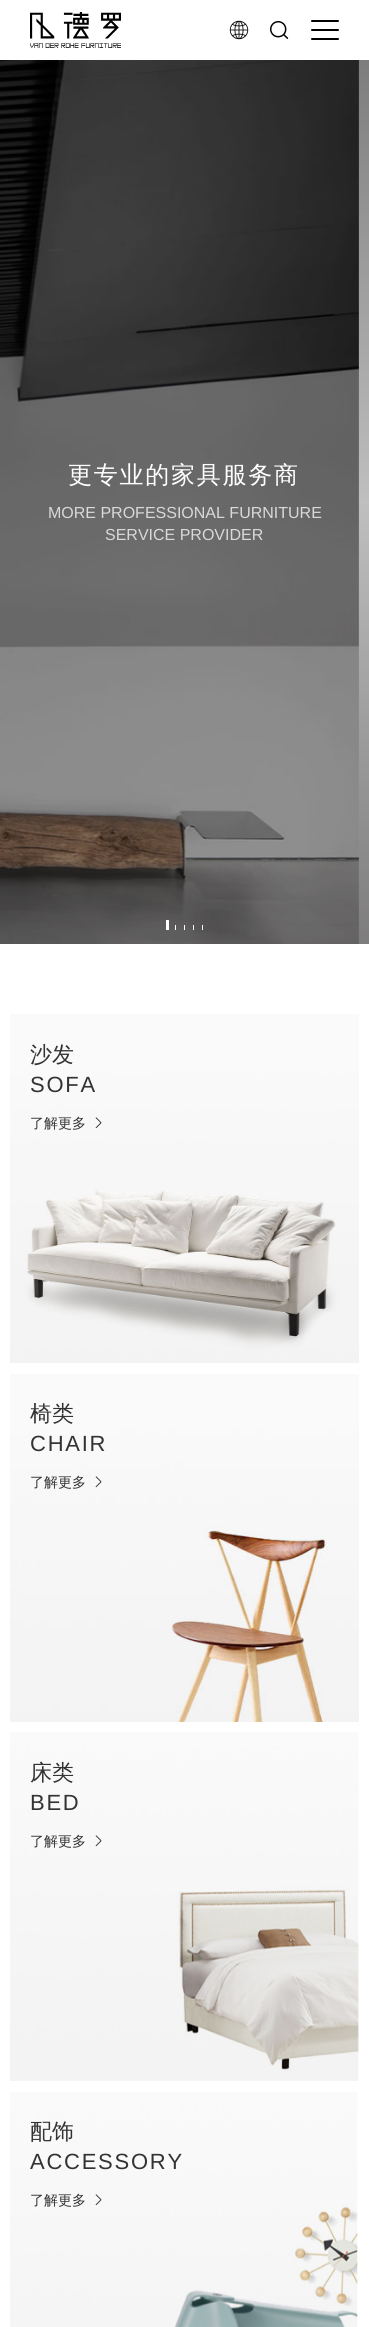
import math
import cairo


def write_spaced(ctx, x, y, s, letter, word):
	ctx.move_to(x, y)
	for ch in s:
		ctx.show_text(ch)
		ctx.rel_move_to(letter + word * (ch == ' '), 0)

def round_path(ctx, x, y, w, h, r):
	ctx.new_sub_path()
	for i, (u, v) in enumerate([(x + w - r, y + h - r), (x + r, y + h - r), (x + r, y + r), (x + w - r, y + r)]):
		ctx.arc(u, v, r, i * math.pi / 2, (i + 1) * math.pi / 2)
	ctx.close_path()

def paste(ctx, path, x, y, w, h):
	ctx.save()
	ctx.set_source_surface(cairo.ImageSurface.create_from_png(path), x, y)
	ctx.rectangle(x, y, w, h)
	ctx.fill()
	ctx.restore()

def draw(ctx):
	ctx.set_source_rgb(1, 1, 1)
	ctx.paint()
	paste(ctx, 'media/1.png', 30, 12, 91, 36)
	paste(ctx, 'media/2.png', 229, 20, 20, 20)
	paste(ctx, 'media/3.png', 270, 21, 19, 18)
	ctx.set_source_rgb(0, 0, 0)
	round_path(ctx, 311, 20, 28, 2, 1)
	ctx.fill()
	round_path(ctx, 311, 29, 28, 2, 1)
	ctx.fill()
	round_path(ctx, 311, 38, 28, 2, 1)
	ctx.fill()
	gradient = cairo.LinearGradient(184, 60, 185, 944)
	gradient.add_color_stop_rgba(0, 0.49, 0.49, 0.49, 1)
	gradient.add_color_stop_rgba(0.5, 0.749, 0.749, 0.749, 1)
	gradient.add_color_stop_rgba(1, 0.49, 0.49, 0.49, 1)
	ctx.set_source(gradient)
	ctx.rectangle(358, 60, 11, 884)
	ctx.fill()
	paste(ctx, 'media/4.png', 0, 60, 359, 884)
	ctx.select_font_face('WenQuanYi Zen Hei Medium')
	ctx.set_font_size(24)
	ctx.set_source_rgb(1, 1, 1)
	write_spaced(ctx, 68, 483, '更专业的家具服务商', 1.75, 0)
	ctx.select_font_face('Liberation Sans')
	ctx.set_font_size(16)
	ctx.set_source_rgb(0.851, 0.851, 0.851)
	ctx.move_to(48, 518)
	ctx.show_text('MORE PROFESSIONAL FURNITURE')
	ctx.move_to(105, 540)
	ctx.show_text('SERVICE PROVIDER')
	ctx.set_source_rgb(1, 1, 1)
	ctx.rectangle(166, 920, 3, 10)
	ctx.rectangle(175, 925, 1, 5)
	ctx.rectangle(184, 925, 1, 5)
	ctx.rectangle(193, 925, 1, 5)
	ctx.rectangle(202, 925, 1, 5)
	ctx.fill()
	paste(ctx, 'media/5.png', 10, 1014, 349, 349)
	ctx.select_font_face('WenQuanYi Zen Hei Medium')
	ctx.set_font_size(22)
	ctx.set_source_rgb(0.2, 0.2, 0.2)
	ctx.move_to(30, 1062)
	ctx.show_text('沙发')
	ctx.select_font_face('Liberation Sans')
	write_spaced(ctx, 30, 1092, 'SOFA', 1.75, 0)
	ctx.select_font_face('WenQuanYi Zen Hei Medium')
	ctx.set_font_size(14)
	ctx.move_to(30, 1128)
	ctx.show_text('了解更多')
	paste(ctx, 'media/6.png', 95, 1117, 7, 12)
	paste(ctx, 'media/7.png', 10, 1374, 349, 348)
	ctx.set_font_size(22)
	ctx.move_to(30, 1421)
	ctx.show_text('椅类')
	ctx.select_font_face('Liberation Sans')
	write_spaced(ctx, 30, 1451, 'CHAIR', 1.75, 0)
	ctx.select_font_face('WenQuanYi Zen Hei Medium')
	ctx.set_font_size(14)
	ctx.move_to(30, 1487)
	ctx.show_text('了解更多')
	paste(ctx, 'media/6.png', 95, 1476, 7, 12)
	paste(ctx, 'media/8.png', 10, 1732, 349, 349)
	ctx.set_font_size(22)
	ctx.move_to(30, 1780)
	ctx.show_text('床类')
	ctx.select_font_face('Liberation Sans')
	write_spaced(ctx, 30, 1810, 'BED', 1.75, 0)
	ctx.select_font_face('WenQuanYi Zen Hei Medium')
	ctx.set_font_size(14)
	ctx.move_to(30, 1846)
	ctx.show_text('了解更多')
	paste(ctx, 'media/6.png', 95, 1835, 7, 12)
	paste(ctx, 'media/9.png', 10, 2092, 348, 235)
	ctx.set_font_size(22)
	ctx.move_to(30, 2139)
	ctx.show_text('配饰')
	ctx.select_font_face('Liberation Sans')
	write_spaced(ctx, 30, 2169, 'ACCESSORY', 1.75, 0)
	ctx.select_font_face('WenQuanYi Zen Hei Medium')
	ctx.set_font_size(14)
	ctx.move_to(30, 2205)
	ctx.show_text('了解更多')
	paste(ctx, 'media/6.png', 95, 2194, 7, 12)


surface = cairo.ImageSurface(cairo.FORMAT_RGB24, 369, 2327)
ctx = cairo.Context(surface)
options = cairo.FontOptions()
options.set_hint_metrics(cairo.HINT_METRICS_OFF)
options.set_hint_style(cairo.HINT_STYLE_NONE)
ctx.set_font_options(options)
ctx.set_miter_limit(4)
draw(ctx)
surface.write_to_png('image.png')
